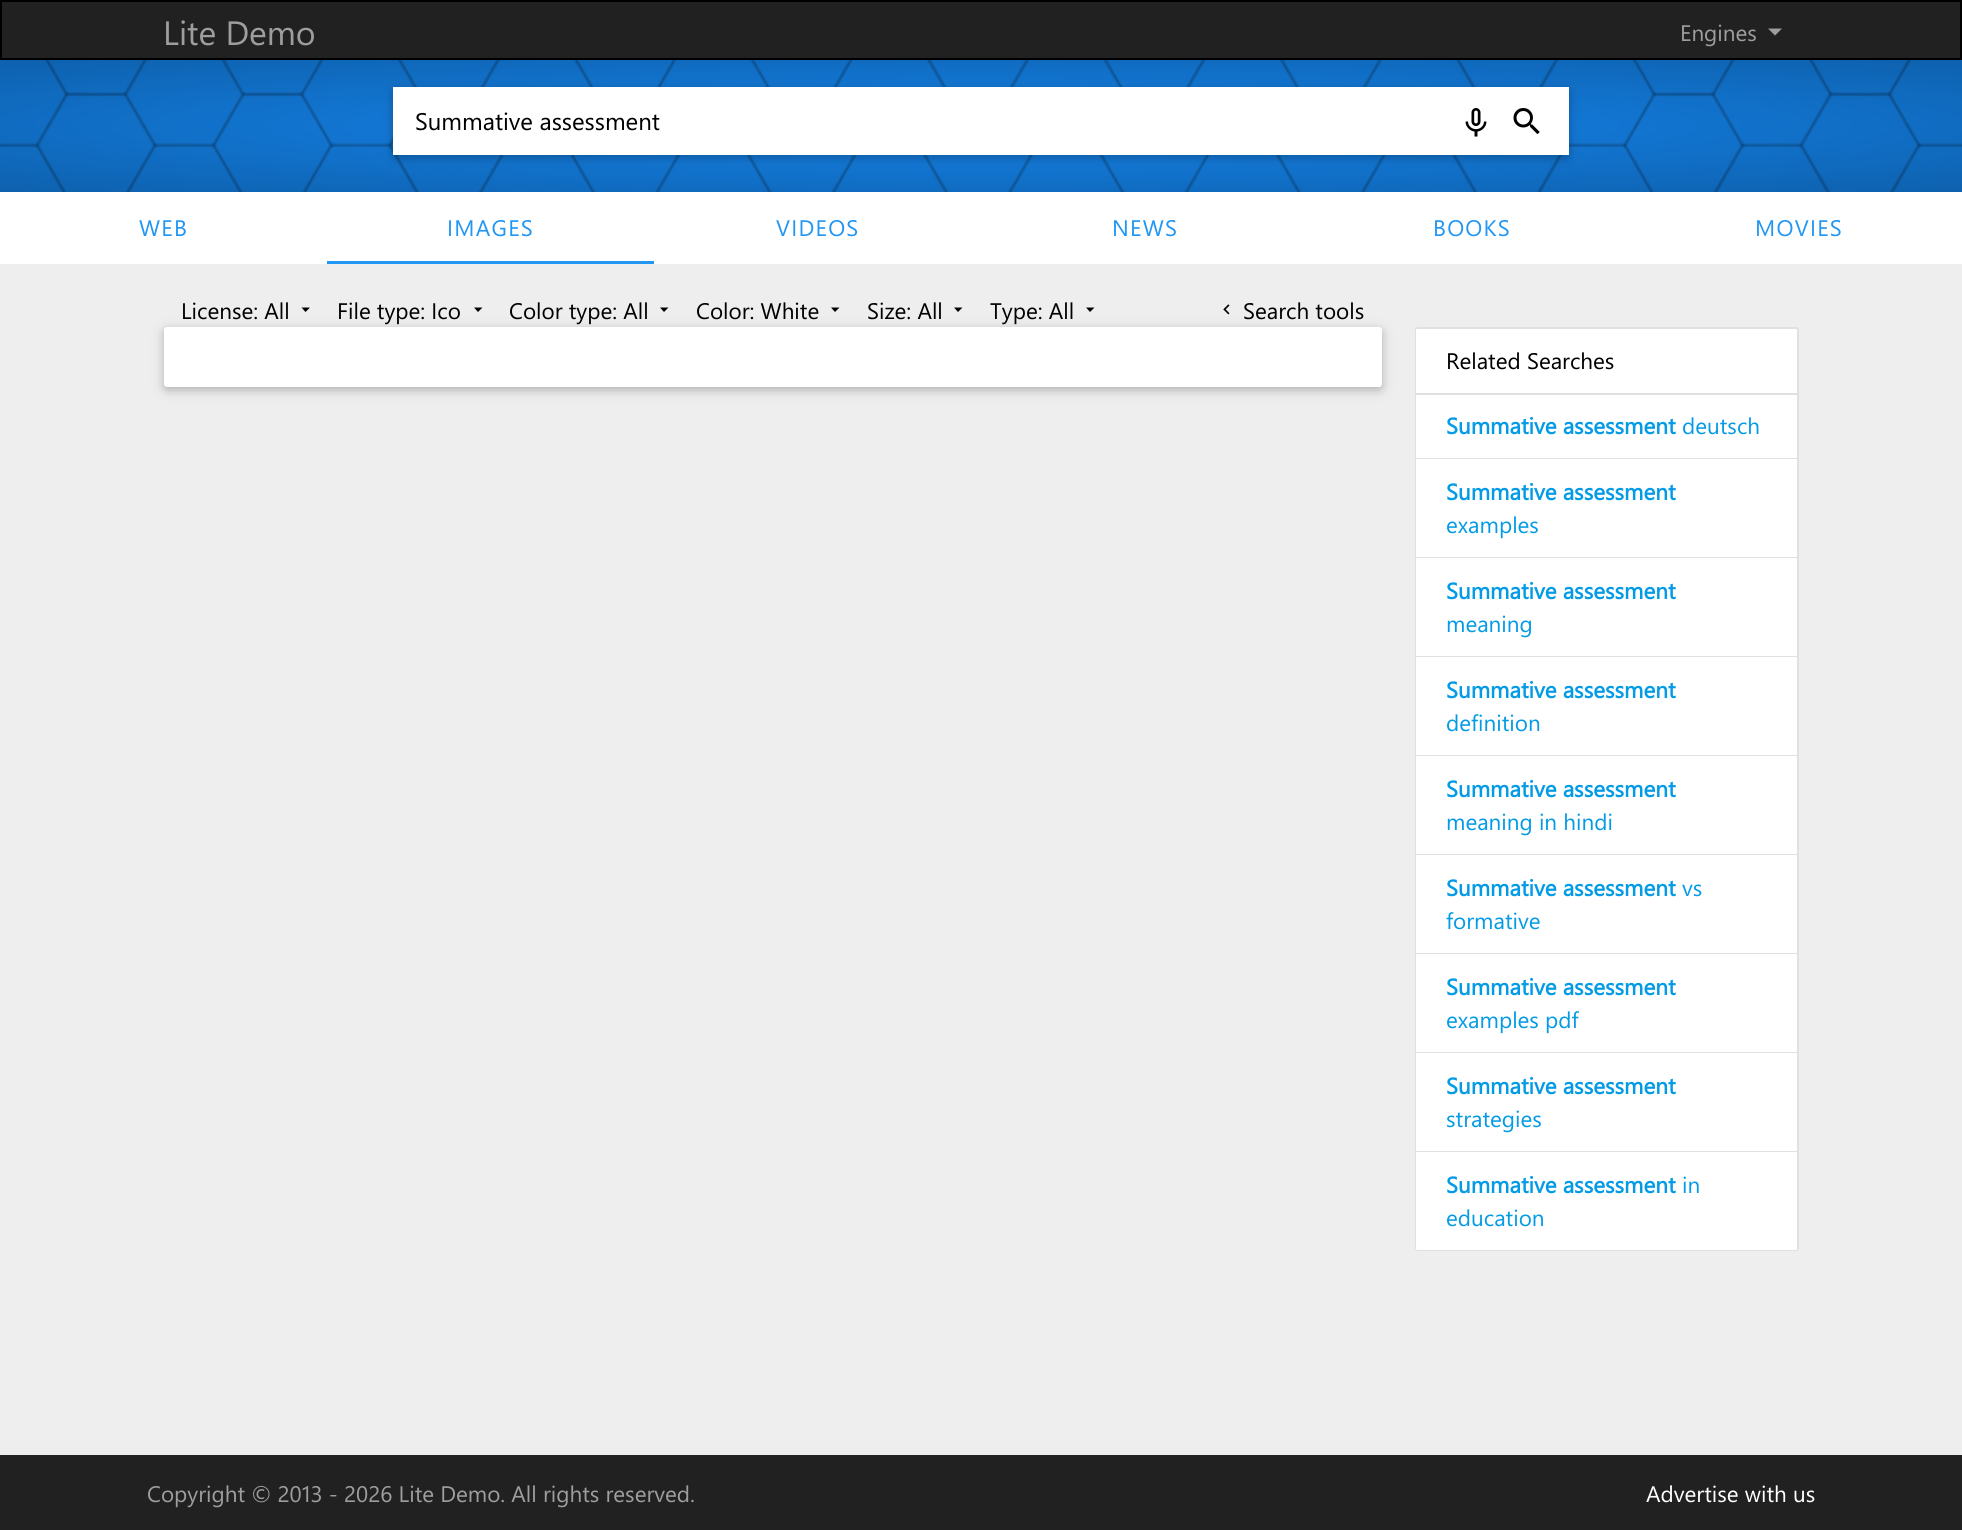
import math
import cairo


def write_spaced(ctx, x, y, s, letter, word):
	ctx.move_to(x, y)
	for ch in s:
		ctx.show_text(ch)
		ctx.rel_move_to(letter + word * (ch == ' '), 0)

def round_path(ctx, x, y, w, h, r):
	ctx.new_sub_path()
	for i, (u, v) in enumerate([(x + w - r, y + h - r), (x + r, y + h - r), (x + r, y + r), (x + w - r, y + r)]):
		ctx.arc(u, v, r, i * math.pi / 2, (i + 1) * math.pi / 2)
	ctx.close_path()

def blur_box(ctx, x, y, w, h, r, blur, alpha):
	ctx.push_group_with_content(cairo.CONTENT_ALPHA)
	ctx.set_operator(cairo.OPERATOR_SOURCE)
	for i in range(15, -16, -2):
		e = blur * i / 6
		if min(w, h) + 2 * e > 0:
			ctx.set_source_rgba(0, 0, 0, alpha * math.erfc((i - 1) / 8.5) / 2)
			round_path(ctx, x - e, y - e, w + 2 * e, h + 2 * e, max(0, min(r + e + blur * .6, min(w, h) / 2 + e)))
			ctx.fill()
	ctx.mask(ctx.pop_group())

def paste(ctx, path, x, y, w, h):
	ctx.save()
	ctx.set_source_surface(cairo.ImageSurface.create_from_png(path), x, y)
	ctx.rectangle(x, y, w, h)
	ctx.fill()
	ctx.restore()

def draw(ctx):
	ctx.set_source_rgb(0.933, 0.933, 0.933)
	ctx.paint()
	ctx.set_source_rgb(0.129, 0.129, 0.129)
	ctx.rectangle(1, 1, 1960, 58)
	ctx.fill_preserve()
	ctx.set_source_rgb(0, 0, 0)
	ctx.stroke()
	ctx.select_font_face('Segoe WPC')
	ctx.set_font_size(33.75)
	ctx.set_source_rgb(0.62, 0.62, 0.62)
	ctx.move_to(163, 45)
	ctx.show_text('Lite Demo')
	ctx.set_font_size(22.5)
	ctx.move_to(1680, 41)
	ctx.show_text('Engines')
	ctx.new_path()
	ctx.move_to(1768, 28.5)
	ctx.line_to(1782, 28.5)
	ctx.line_to(1775, 35.5)
	ctx.close_path()
	ctx.fill()
	gradient = cairo.RadialGradient(0, 0, 0, 0, 0, 1)
	gradient.set_matrix(cairo.Matrix(1 / 1387, 0, 0, 1 / 93, -1 * 981 / 1387, -1 * 126 / 93))
	gradient.add_color_stop_rgba(0, 0.082, 0.522, 0.929, 1)
	gradient.add_color_stop_rgba(1, 0.055, 0.38, 0.682, 1)
	ctx.set_source(gradient)
	ctx.rectangle(0, 60, 1962, 132)
	ctx.fill()
	paste(ctx, 'media/1.png', 0, 60, 1962, 132)
	ctx.set_source_rgb(0, 0, 0)
	blur_box(ctx, 393, 90, 1176, 68, 3, 7.5, 0.12)
	blur_box(ctx, 393, 90, 1176, 68, 3, 4, 0.16)
	ctx.set_source_rgb(1, 1, 1)
	ctx.rectangle(393, 87, 1176, 68)
	ctx.fill()
	ctx.set_font_size(24)
	ctx.set_source_rgb(0, 0, 0)
	ctx.move_to(415, 130)
	ctx.show_text('Summative assessment')
	paste(ctx, 'media/2.png', 1465, 108, 22, 29)
	paste(ctx, 'media/3.png', 1513, 108, 27, 27)
	ctx.set_source_rgb(1, 1, 1)
	ctx.rectangle(0, 192, 1962, 72)
	ctx.fill()
	ctx.set_font_size(22.5)
	ctx.set_source_rgb(0.129, 0.588, 0.953)
	write_spaced(ctx, 139, 236, 'WEB', 1.25, 0)
	ctx.rectangle(327, 261, 327, 3)
	ctx.fill()
	for x, y, s in [
		(447, 236, 'IMAGES'),
		(776, 236, 'VIDEOS'),
		(1112, 236, 'NEWS'),
		(1433, 236, 'BOOKS'),
		(1755, 236, 'MOVIES'),
	]:
		write_spaced(ctx, x, y, s, 1.25, 0)
	ctx.set_source_rgb(0, 0, 0)
	ctx.move_to(181, 319)
	ctx.show_text('License: All')
	ctx.new_path()
	ctx.move_to(301.5, 307.5)
	ctx.line_to(310, 307.5)
	ctx.line_to(305.5, 312)
	ctx.close_path()
	ctx.fill()
	ctx.move_to(337, 319)
	ctx.show_text('File type: Ico')
	ctx.new_path()
	ctx.move_to(474, 307.5)
	ctx.line_to(482.5, 307.5)
	ctx.line_to(478, 312)
	ctx.close_path()
	ctx.fill()
	ctx.move_to(509, 319)
	ctx.show_text('Color type: All')
	ctx.new_path()
	ctx.move_to(660, 307.5)
	ctx.line_to(668.5, 307.5)
	ctx.line_to(664, 312)
	ctx.close_path()
	ctx.fill()
	ctx.move_to(696, 319)
	ctx.show_text('Color: White')
	ctx.new_path()
	ctx.move_to(831, 307.5)
	ctx.line_to(839.5, 307.5)
	ctx.line_to(835, 312)
	ctx.close_path()
	ctx.fill()
	ctx.move_to(867, 319)
	ctx.show_text('Size: All')
	ctx.new_path()
	ctx.move_to(954, 307.5)
	ctx.line_to(962.5, 307.5)
	ctx.line_to(958, 312)
	ctx.close_path()
	ctx.fill()
	ctx.move_to(990, 319)
	ctx.show_text('Type: All')
	ctx.new_path()
	ctx.move_to(1086, 307.5)
	ctx.line_to(1094.5, 307.5)
	ctx.line_to(1090, 312)
	ctx.close_path()
	ctx.fill()
	paste(ctx, 'media/4.png', 1223, 304, 7, 11)
	ctx.move_to(1243, 319)
	ctx.show_text('Search tools')
	ctx.set_source_rgb(0, 0, 0)
	blur_box(ctx, 164, 330, 1218, 60, 3, 7.5, 0.12)
	blur_box(ctx, 164, 330, 1218, 60, 3, 4, 0.16)
	ctx.set_source_rgb(1, 1, 1)
	round_path(ctx, 164, 327, 1218, 60, 3)
	ctx.fill()
	round_path(ctx, 1416, 328, 382, 922, 2)
	ctx.set_source_rgb(0.878, 0.878, 0.878)
	ctx.stroke()
	ctx.set_source_rgb(1, 1, 1)
	ctx.new_path()
	ctx.move_to(1417.5, 329)
	ctx.line_to(1795.5, 329)
	ctx.curve_to(1796.5, 329, 1797, 329.5, 1797, 330.5)
	ctx.line_to(1797, 395)
	ctx.line_to(1416, 395)
	ctx.line_to(1416, 330.5)
	ctx.curve_to(1416, 329.5, 1416.5, 329, 1417.5, 329)
	ctx.close_path()
	ctx.fill()
	ctx.set_source_rgb(0.878, 0.878, 0.878)
	ctx.rectangle(1416, 393, 381, 2)
	ctx.fill()
	ctx.set_source_rgb(0, 0, 0)
	ctx.move_to(1446, 369)
	ctx.show_text('Related Searches')
	ctx.set_source_rgb(1, 1, 1)
	ctx.rectangle(1416, 395, 381, 63)
	ctx.fill()
	ctx.set_source_rgb(0.878, 0.878, 0.878)
	ctx.rectangle(1416, 458, 381, 1)
	ctx.fill()
	ctx.select_font_face('Segoe WPC', cairo.FONT_SLANT_NORMAL, cairo.FONT_WEIGHT_BOLD)
	ctx.set_source_rgb(0.012, 0.608, 0.898)
	ctx.move_to(1446, 434)
	ctx.show_text('Summative assessment')
	ctx.select_font_face('Segoe WPC')
	ctx.move_to(1682, 434)
	ctx.show_text('deutsch')
	ctx.set_source_rgb(1, 1, 1)
	ctx.rectangle(1416, 459, 381, 98)
	ctx.fill()
	ctx.set_source_rgb(0.878, 0.878, 0.878)
	ctx.rectangle(1416, 557, 381, 1)
	ctx.fill()
	ctx.select_font_face('Segoe WPC', cairo.FONT_SLANT_NORMAL, cairo.FONT_WEIGHT_BOLD)
	ctx.set_source_rgb(0.012, 0.608, 0.898)
	ctx.move_to(1446, 500)
	ctx.show_text('Summative assessment')
	ctx.select_font_face('Segoe WPC')
	ctx.move_to(1446, 533)
	ctx.show_text('examples')
	ctx.set_source_rgb(1, 1, 1)
	ctx.rectangle(1416, 558, 381, 98)
	ctx.fill()
	ctx.set_source_rgb(0.878, 0.878, 0.878)
	ctx.rectangle(1416, 656, 381, 1)
	ctx.fill()
	ctx.select_font_face('Segoe WPC', cairo.FONT_SLANT_NORMAL, cairo.FONT_WEIGHT_BOLD)
	ctx.set_source_rgb(0.012, 0.608, 0.898)
	ctx.move_to(1446, 599)
	ctx.show_text('Summative assessment')
	ctx.select_font_face('Segoe WPC')
	ctx.move_to(1446, 632)
	ctx.show_text('meaning')
	ctx.set_source_rgb(1, 1, 1)
	ctx.rectangle(1416, 657, 381, 98)
	ctx.fill()
	ctx.set_source_rgb(0.878, 0.878, 0.878)
	ctx.rectangle(1416, 755, 381, 1)
	ctx.fill()
	ctx.select_font_face('Segoe WPC', cairo.FONT_SLANT_NORMAL, cairo.FONT_WEIGHT_BOLD)
	ctx.set_source_rgb(0.012, 0.608, 0.898)
	ctx.move_to(1446, 698)
	ctx.show_text('Summative assessment')
	ctx.select_font_face('Segoe WPC')
	ctx.move_to(1446, 731)
	ctx.show_text('definition')
	ctx.set_source_rgb(1, 1, 1)
	ctx.rectangle(1416, 756, 381, 98)
	ctx.fill()
	ctx.set_source_rgb(0.878, 0.878, 0.878)
	ctx.rectangle(1416, 854, 381, 1)
	ctx.fill()
	ctx.select_font_face('Segoe WPC', cairo.FONT_SLANT_NORMAL, cairo.FONT_WEIGHT_BOLD)
	ctx.set_source_rgb(0.012, 0.608, 0.898)
	ctx.move_to(1446, 797)
	ctx.show_text('Summative assessment')
	ctx.select_font_face('Segoe WPC')
	ctx.move_to(1446, 830)
	ctx.show_text('meaning in hindi')
	ctx.set_source_rgb(1, 1, 1)
	ctx.rectangle(1416, 855, 381, 98)
	ctx.fill()
	ctx.set_source_rgb(0.878, 0.878, 0.878)
	ctx.rectangle(1416, 953, 381, 1)
	ctx.fill()
	ctx.select_font_face('Segoe WPC', cairo.FONT_SLANT_NORMAL, cairo.FONT_WEIGHT_BOLD)
	ctx.set_source_rgb(0.012, 0.608, 0.898)
	ctx.move_to(1446, 896)
	ctx.show_text('Summative assessment')
	ctx.select_font_face('Segoe WPC')
	ctx.move_to(1682, 896)
	ctx.show_text('vs')
	ctx.move_to(1446, 929)
	ctx.show_text('formative')
	ctx.set_source_rgb(1, 1, 1)
	ctx.rectangle(1416, 954, 381, 98)
	ctx.fill()
	ctx.set_source_rgb(0.878, 0.878, 0.878)
	ctx.rectangle(1416, 1052, 381, 1)
	ctx.fill()
	ctx.select_font_face('Segoe WPC', cairo.FONT_SLANT_NORMAL, cairo.FONT_WEIGHT_BOLD)
	ctx.set_source_rgb(0.012, 0.608, 0.898)
	ctx.move_to(1446, 995)
	ctx.show_text('Summative assessment')
	ctx.select_font_face('Segoe WPC')
	ctx.move_to(1446, 1028)
	ctx.show_text('examples pdf')
	ctx.set_source_rgb(1, 1, 1)
	ctx.rectangle(1416, 1053, 381, 98)
	ctx.fill()
	ctx.set_source_rgb(0.878, 0.878, 0.878)
	ctx.rectangle(1416, 1151, 381, 1)
	ctx.fill()
	ctx.select_font_face('Segoe WPC', cairo.FONT_SLANT_NORMAL, cairo.FONT_WEIGHT_BOLD)
	ctx.set_source_rgb(0.012, 0.608, 0.898)
	ctx.move_to(1446, 1094)
	ctx.show_text('Summative assessment')
	ctx.select_font_face('Segoe WPC')
	ctx.move_to(1446, 1127)
	ctx.show_text('strategies')
	ctx.set_source_rgb(1, 1, 1)
	ctx.new_path()
	ctx.move_to(1416, 1152)
	ctx.line_to(1797, 1152)
	ctx.line_to(1797, 1248.5)
	ctx.curve_to(1797, 1249.5, 1796.5, 1250, 1795.5, 1250)
	ctx.line_to(1417.5, 1250)
	ctx.curve_to(1416.5, 1250, 1416, 1249.5, 1416, 1248.5)
	ctx.close_path()
	ctx.fill()
	ctx.select_font_face('Segoe WPC', cairo.FONT_SLANT_NORMAL, cairo.FONT_WEIGHT_BOLD)
	ctx.set_source_rgb(0.012, 0.608, 0.898)
	ctx.move_to(1446, 1193)
	ctx.show_text('Summative assessment')
	ctx.select_font_face('Segoe WPC')
	ctx.move_to(1682, 1193)
	ctx.show_text('in')
	ctx.move_to(1446, 1226)
	ctx.show_text('education')
	ctx.set_source_rgb(0.129, 0.129, 0.129)
	ctx.rectangle(0, 1455, 1962, 75)
	ctx.fill()
	ctx.set_source_rgb(0.62, 0.62, 0.62)
	ctx.move_to(147, 1502)
	ctx.show_text('Copyright © 2013 - 2026 Lite Demo. All rights reserved.')
	ctx.set_source_rgb(1, 1, 1)
	ctx.move_to(1646, 1502)
	ctx.show_text('Advertise with us')


surface = cairo.ImageSurface(cairo.FORMAT_RGB24, 1962, 1530)
ctx = cairo.Context(surface)
options = cairo.FontOptions()
options.set_hint_metrics(cairo.HINT_METRICS_OFF)
options.set_hint_style(cairo.HINT_STYLE_NONE)
ctx.set_font_options(options)
ctx.set_miter_limit(4)
draw(ctx)
surface.write_to_png('image.png')
